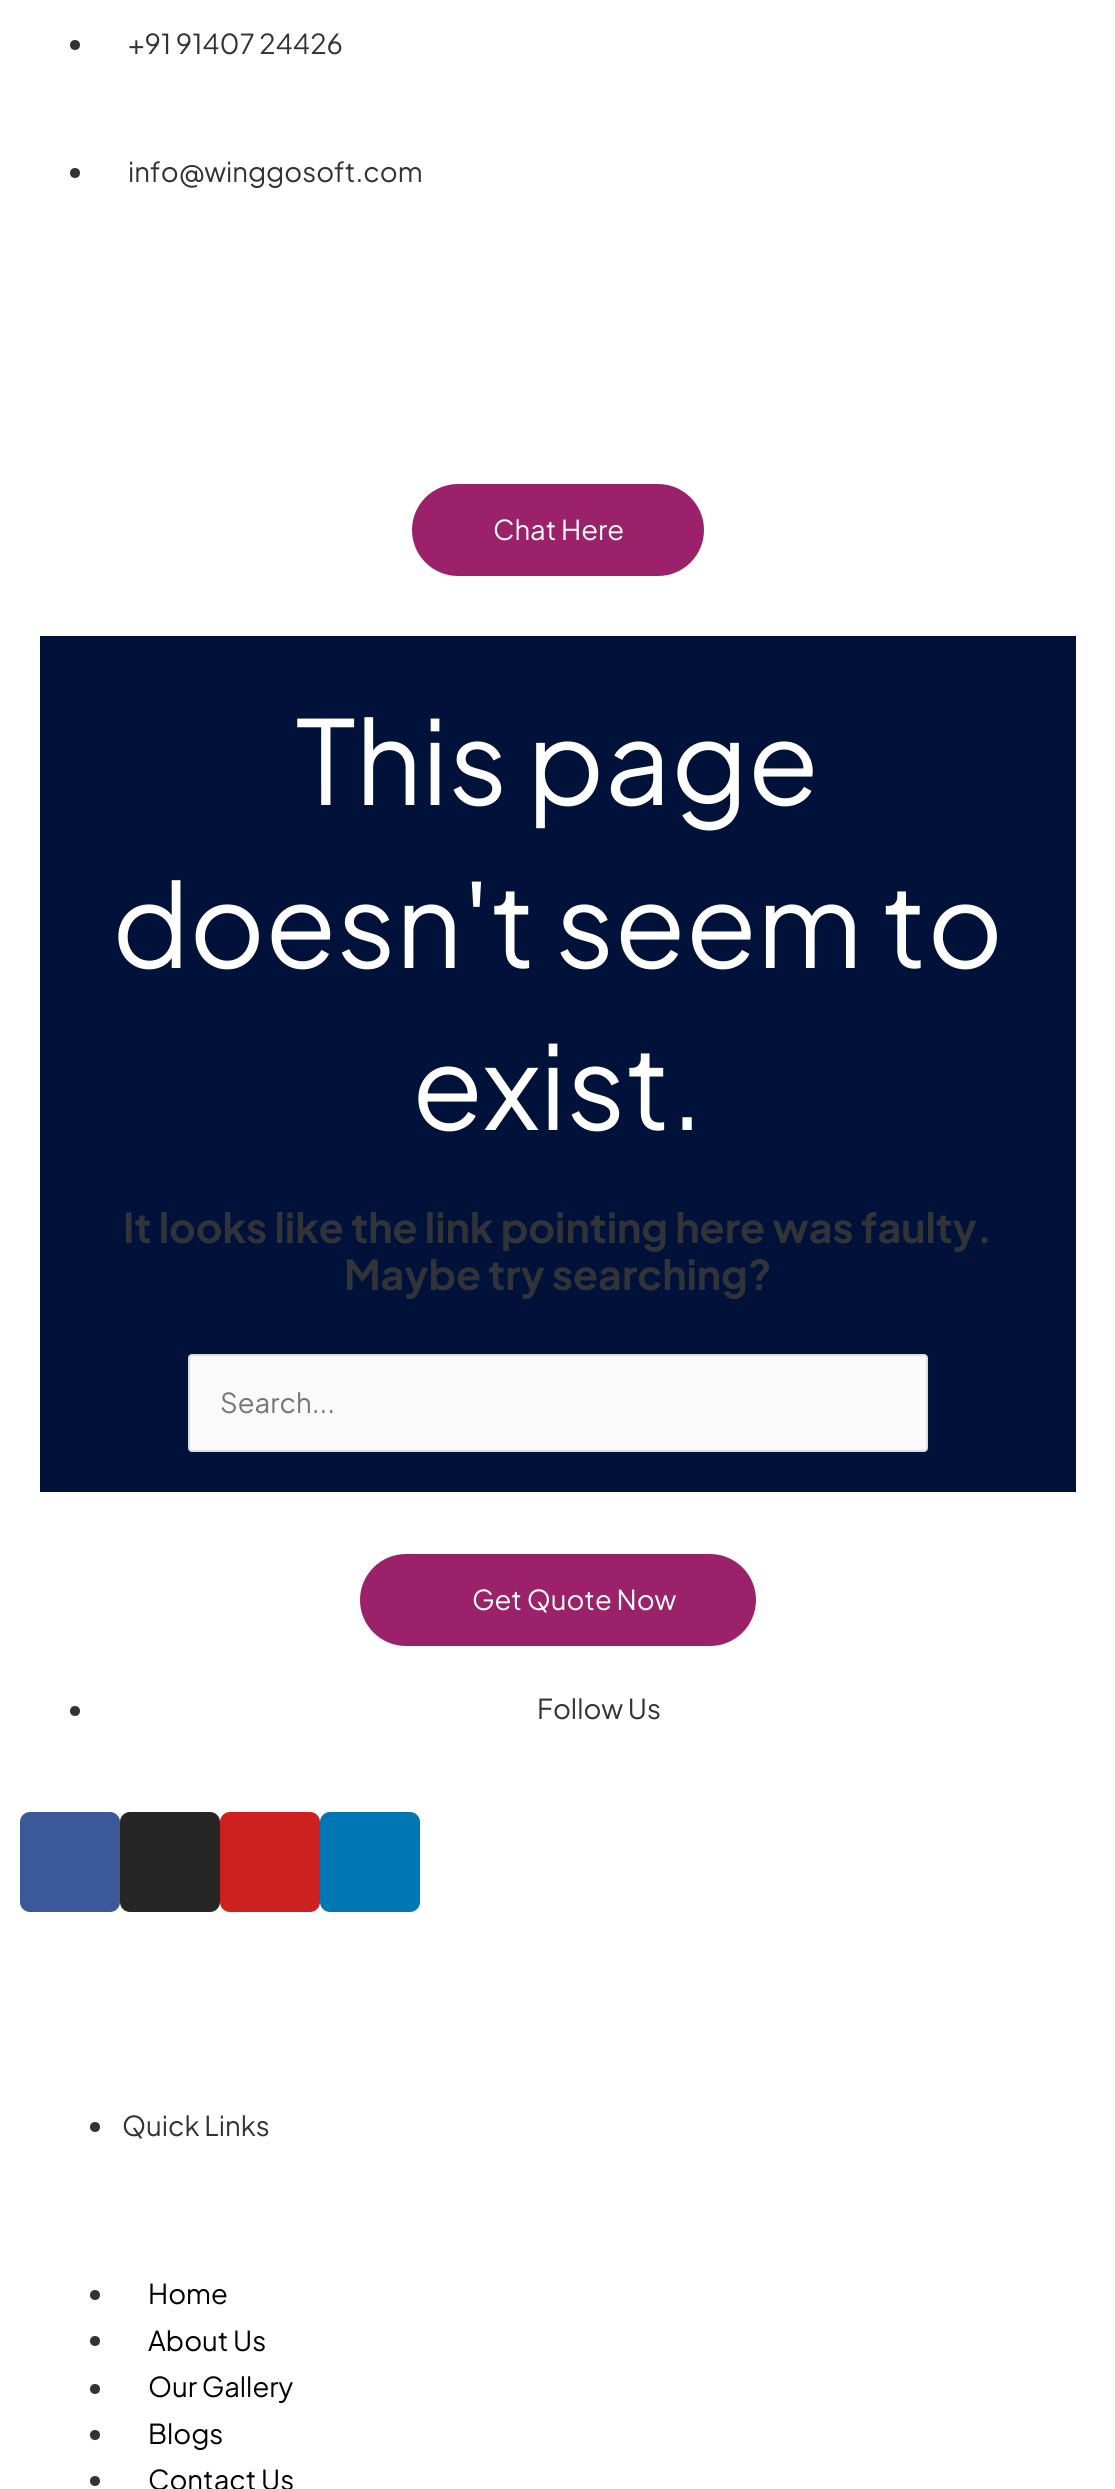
import math
import cairo


def round_path(ctx, x, y, w, h, r):
	ctx.new_sub_path()
	for i, (u, v) in enumerate([(x + w - r, y + h - r), (x + r, y + h - r), (x + r, y + r), (x + w - r, y + r)]):
		ctx.arc(u, v, r, i * math.pi / 2, (i + 1) * math.pi / 2)
	ctx.close_path()

def draw(ctx):
	ctx.set_source_rgb(1, 1, 1)
	ctx.paint()
	ctx.set_source_rgb(0.192, 0.2, 0.22)
	ctx.arc(75, 45, 5, 0, 2 * math.pi)
	ctx.fill()
	ctx.select_font_face('Plus Jakarta Sans')
	ctx.set_font_size(27.4)
	ctx.move_to(128, 54)
	ctx.show_text('+91 91407 24426')
	ctx.new_path()
	ctx.arc(75, 173, 5, 0, 2 * math.pi)
	ctx.fill()
	ctx.move_to(128, 182)
	ctx.show_text('info@winggosoft.com')
	ctx.set_source_rgb(0.608, 0.129, 0.42)
	round_path(ctx, 412, 484, 292, 92, 46)
	ctx.fill()
	ctx.set_source_rgb(1, 1, 1)
	ctx.move_to(493, 540)
	ctx.show_text('Chat Here')
	ctx.set_source_rgb(0, 0.071, 0.227)
	ctx.rectangle(40, 636, 1036, 856)
	ctx.fill()
	ctx.set_font_size(116)
	ctx.set_source_rgb(1, 1, 1)
	for x, y, s in [
		(296, 805, 'This page'),
		(112, 968, 'doesn\'t seem to'),
		(412, 1130, 'exist.'),
	]:
		ctx.move_to(x, y)
		ctx.show_text(s)
	ctx.select_font_face('Plus Jakarta Sans', cairo.FONT_SLANT_NORMAL, cairo.FONT_WEIGHT_BOLD)
	ctx.set_font_size(41)
	ctx.set_source_rgb(0.192, 0.2, 0.22)
	ctx.move_to(123, 1243)
	ctx.show_text('It looks like the link pointing here was faulty.')
	ctx.move_to(344, 1290)
	ctx.show_text('Maybe try searching?')
	ctx.set_source_rgb(0.98, 0.98, 0.98)
	round_path(ctx, 189, 1355, 738, 96, 3)
	ctx.fill_preserve()
	ctx.set_source_rgb(0.867, 0.867, 0.867)
	ctx.stroke()
	ctx.select_font_face('Plus Jakarta Sans')
	ctx.set_font_size(27.4)
	ctx.set_source_rgb(0.459, 0.459, 0.459)
	ctx.move_to(220, 1413)
	ctx.show_text('Search...')
	ctx.set_source_rgb(0.608, 0.129, 0.42)
	round_path(ctx, 360, 1554, 396, 92, 46)
	ctx.fill()
	ctx.set_source_rgb(1, 1, 1)
	ctx.move_to(472, 1610)
	ctx.show_text('Get Quote Now')
	ctx.set_source_rgb(0.192, 0.2, 0.22)
	ctx.new_path()
	ctx.arc(75, 1711, 5, 0, 2 * math.pi)
	ctx.fill()
	ctx.move_to(537, 1719)
	ctx.show_text('Follow Us')
	ctx.set_source_rgb(0.231, 0.349, 0.596)
	round_path(ctx, 20, 1812, 100, 100, 10)
	ctx.fill()
	ctx.set_source_rgb(0.149, 0.149, 0.149)
	round_path(ctx, 120, 1812, 100, 100, 10)
	ctx.fill()
	ctx.set_source_rgb(0.804, 0.125, 0.122)
	round_path(ctx, 220, 1812, 100, 100, 10)
	ctx.fill()
	ctx.set_source_rgb(0, 0.467, 0.71)
	round_path(ctx, 320, 1812, 100, 100, 10)
	ctx.fill()
	ctx.set_source_rgb(0.192, 0.2, 0.22)
	ctx.arc(95, 2127, 5, 0, 2 * math.pi)
	ctx.fill()
	ctx.move_to(122, 2136)
	ctx.show_text('Quick Links')
	ctx.new_path()
	ctx.arc(95, 2295, 5, 0, 2 * math.pi)
	ctx.fill()
	ctx.set_source_rgb(0, 0, 0)
	ctx.move_to(148, 2304)
	ctx.show_text('Home')
	ctx.set_source_rgb(0.192, 0.2, 0.22)
	ctx.new_path()
	ctx.arc(95, 2341, 5, 0, 2 * math.pi)
	ctx.fill()
	ctx.set_source_rgb(0, 0, 0)
	ctx.move_to(148, 2351)
	ctx.show_text('About Us')
	ctx.set_source_rgb(0.192, 0.2, 0.22)
	ctx.new_path()
	ctx.arc(95, 2389, 5, 0, 2 * math.pi)
	ctx.fill()
	ctx.set_source_rgb(0, 0, 0)
	ctx.move_to(148, 2397)
	ctx.show_text('Our Gallery')
	ctx.set_source_rgb(0.192, 0.2, 0.22)
	ctx.new_path()
	ctx.arc(95, 2435, 5, 0, 2 * math.pi)
	ctx.fill()
	ctx.set_source_rgb(0, 0, 0)
	ctx.move_to(148, 2444)
	ctx.show_text('Blogs')
	ctx.set_source_rgb(0.192, 0.2, 0.22)
	ctx.new_path()
	ctx.arc(95, 2481, 5, 0, 2 * math.pi)
	ctx.fill()
	ctx.set_source_rgb(0, 0, 0)
	ctx.move_to(148, 2490)
	ctx.show_text('Contact Us')


surface = cairo.ImageSurface(cairo.FORMAT_RGB24, 1115, 2489)
ctx = cairo.Context(surface)
options = cairo.FontOptions()
options.set_hint_metrics(cairo.HINT_METRICS_OFF)
options.set_hint_style(cairo.HINT_STYLE_NONE)
ctx.set_font_options(options)
ctx.set_miter_limit(4)
draw(ctx)
surface.write_to_png('image.png')
